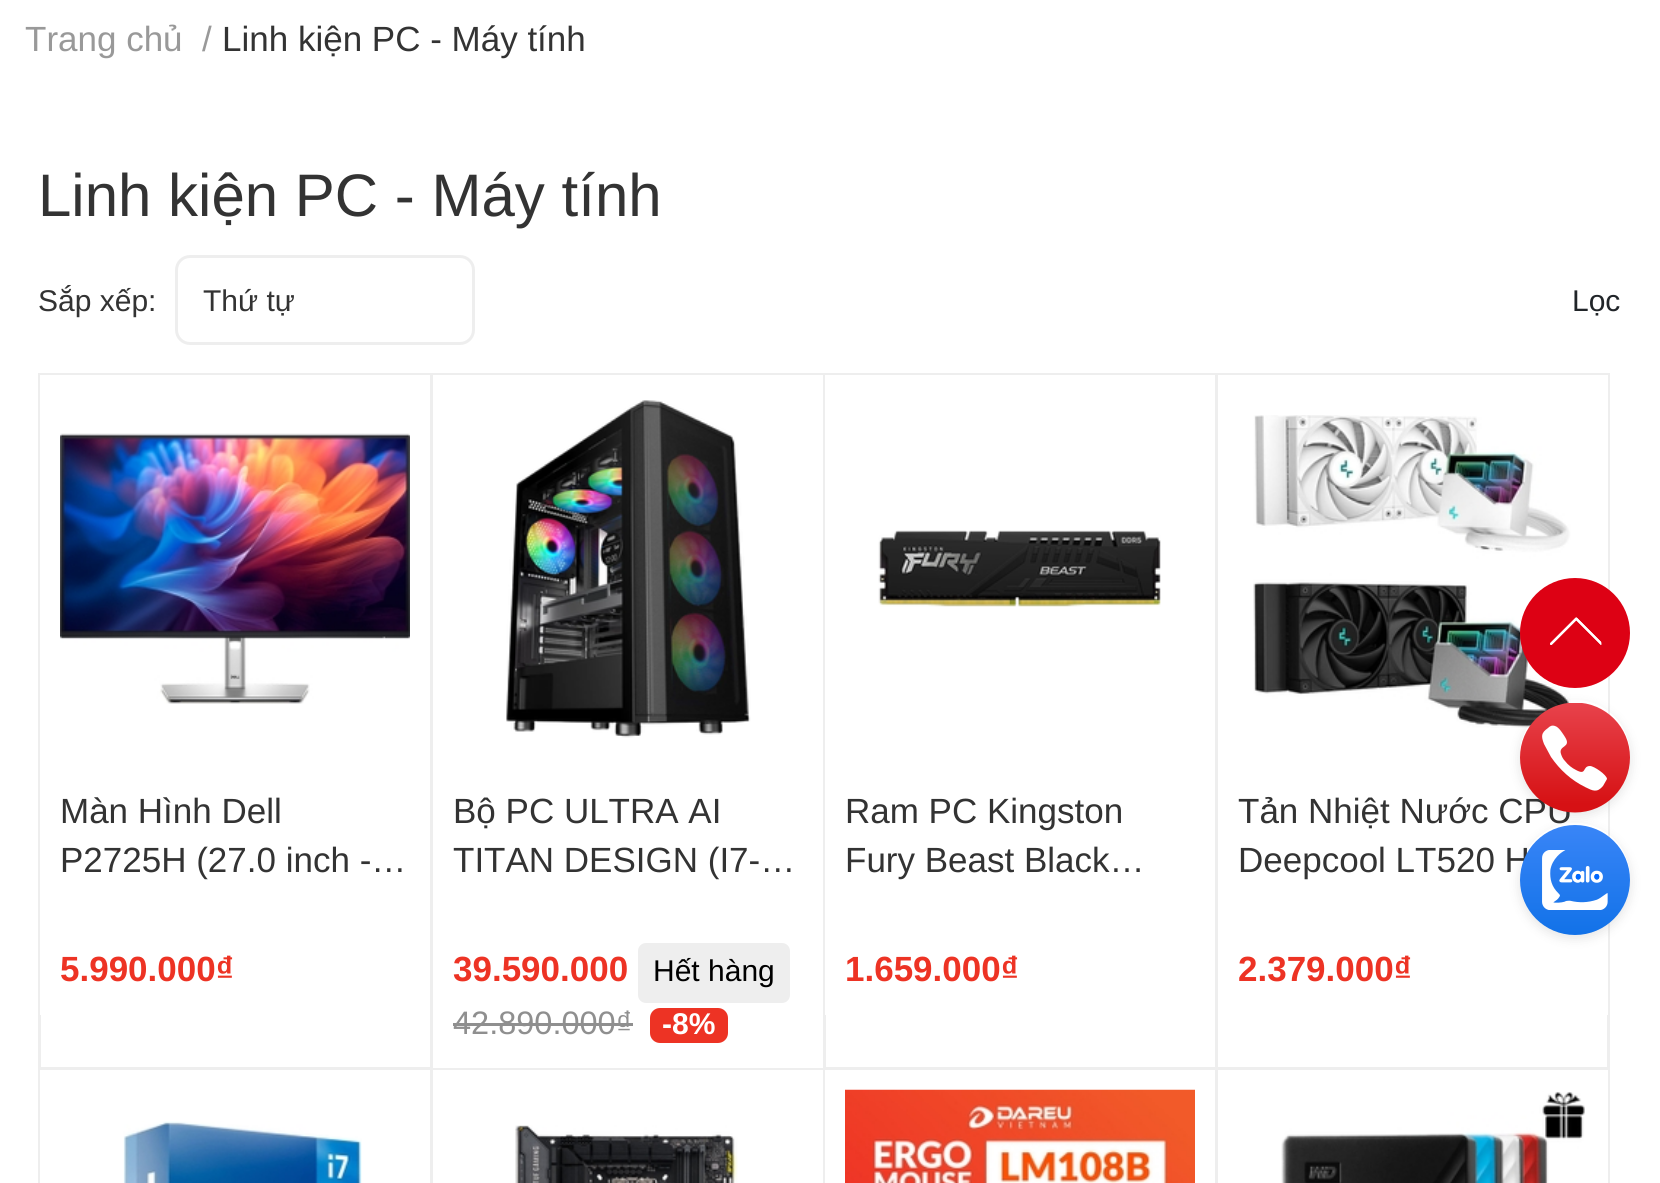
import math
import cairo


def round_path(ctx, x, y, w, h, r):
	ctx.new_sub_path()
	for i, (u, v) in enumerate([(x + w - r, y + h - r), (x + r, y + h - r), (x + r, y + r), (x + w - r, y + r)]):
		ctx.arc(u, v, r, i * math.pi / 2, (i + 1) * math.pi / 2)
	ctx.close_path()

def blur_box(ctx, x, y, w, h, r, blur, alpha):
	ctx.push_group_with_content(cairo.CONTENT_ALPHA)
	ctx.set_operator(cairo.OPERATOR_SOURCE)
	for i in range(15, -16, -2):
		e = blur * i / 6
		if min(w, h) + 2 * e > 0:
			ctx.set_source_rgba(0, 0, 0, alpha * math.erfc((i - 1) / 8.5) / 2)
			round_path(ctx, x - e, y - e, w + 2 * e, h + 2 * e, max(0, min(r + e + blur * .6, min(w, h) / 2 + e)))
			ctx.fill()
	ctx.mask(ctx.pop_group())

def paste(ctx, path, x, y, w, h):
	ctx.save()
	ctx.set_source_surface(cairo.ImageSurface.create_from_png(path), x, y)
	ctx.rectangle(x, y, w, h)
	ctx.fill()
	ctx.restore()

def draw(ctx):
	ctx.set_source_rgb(1, 1, 1)
	ctx.paint()
	ctx.select_font_face('Liberation Sans')
	ctx.set_font_size(35)
	ctx.set_source_rgb(0.6, 0.6, 0.6)
	ctx.move_to(25, 51)
	ctx.show_text('Trang chủ')
	ctx.move_to(202, 51)
	ctx.show_text('/')
	ctx.set_source_rgb(0.2, 0.2, 0.2)
	ctx.move_to(222, 51)
	ctx.show_text('Linh kiện PC - Máy tính')
	ctx.set_font_size(60)
	ctx.move_to(38, 216)
	ctx.show_text('Linh kiện PC - Máy tính')
	ctx.set_font_size(30)
	ctx.move_to(38, 311)
	ctx.show_text('Sắp xếp:')
	round_path(ctx, 176.5, 256.5, 297, 87, 13.5)
	ctx.set_source_rgb(0.933, 0.933, 0.933)
	ctx.set_line_width(3)
	ctx.stroke()
	ctx.set_source_rgb(0.2, 0.2, 0.2)
	ctx.move_to(203, 311)
	ctx.show_text('Thứ tự')
	ctx.set_source_rgb(0.129, 0.145, 0.161)
	ctx.move_to(1572, 311)
	ctx.show_text('Lọc')
	ctx.rectangle(39.5, 374.5, 392, 694)
	ctx.set_source_rgb(0.933, 0.933, 0.933)
	ctx.stroke()
	ctx.set_source_rgb(1, 1, 1)
	ctx.rectangle(40, 375, 390, 640)
	ctx.fill()
	paste(ctx, 'media/1.png', 60, 433, 350, 271)
	ctx.set_font_size(35)
	ctx.set_source_rgb(0.2, 0.2, 0.2)
	ctx.move_to(60, 823)
	ctx.show_text('Màn Hình Dell')
	ctx.move_to(60, 872)
	ctx.show_text('P2725H (27.0 inch -…')
	ctx.select_font_face('Liberation Sans', cairo.FONT_SLANT_NORMAL, cairo.FONT_WEIGHT_BOLD)
	ctx.set_source_rgb(0.929, 0.2, 0.141)
	ctx.move_to(60, 981)
	ctx.show_text('5.990.000₫')
	ctx.rectangle(431.5, 374.5, 392, 694)
	ctx.set_source_rgb(0.933, 0.933, 0.933)
	ctx.stroke()
	ctx.set_source_rgb(1, 1, 1)
	ctx.rectangle(433, 375, 390, 693)
	ctx.fill()
	paste(ctx, 'media/2.png', 506, 400, 245, 338)
	ctx.select_font_face('Liberation Sans')
	ctx.set_source_rgb(0.2, 0.2, 0.2)
	ctx.move_to(453, 823)
	ctx.show_text('Bộ PC ULTRA AI')
	ctx.move_to(453, 872)
	ctx.show_text('TITAN DESIGN (I7-…')
	ctx.select_font_face('Liberation Sans', cairo.FONT_SLANT_NORMAL, cairo.FONT_WEIGHT_BOLD)
	ctx.set_source_rgb(0.929, 0.2, 0.141)
	ctx.move_to(453, 981)
	ctx.show_text('39.590.000')
	ctx.select_font_face('Liberation Sans')
	ctx.set_font_size(32.5)
	ctx.set_source_rgb(0.561, 0.561, 0.561)
	ctx.move_to(453, 1034)
	ctx.show_text('42.890.000₫')
	ctx.rectangle(453, 1023, 180, 3)
	ctx.fill()
	ctx.set_source_rgb(0.929, 0.2, 0.141)
	round_path(ctx, 650, 1008, 78, 35, 10)
	ctx.fill()
	ctx.select_font_face('Liberation Sans', cairo.FONT_SLANT_NORMAL, cairo.FONT_WEIGHT_BOLD)
	ctx.set_font_size(30)
	ctx.set_source_rgb(1, 1, 1)
	ctx.move_to(662, 1034)
	ctx.show_text('-8%')
	ctx.set_source_rgb(0.933, 0.933, 0.933)
	round_path(ctx, 638, 943, 152, 60, 8)
	ctx.fill()
	ctx.select_font_face('Liberation Sans')
	ctx.set_source_rgb(0, 0, 0)
	ctx.move_to(653, 981)
	ctx.show_text('Hết hàng')
	ctx.rectangle(824.5, 374.5, 392, 694)
	ctx.set_source_rgb(0.933, 0.933, 0.933)
	ctx.stroke()
	ctx.set_source_rgb(1, 1, 1)
	ctx.rectangle(825, 375, 390, 640)
	ctx.fill()
	paste(ctx, 'media/3.png', 878, 530, 283, 77)
	ctx.set_font_size(35)
	ctx.set_source_rgb(0.2, 0.2, 0.2)
	ctx.move_to(845, 823)
	ctx.show_text('Ram PC Kingston')
	ctx.move_to(845, 872)
	ctx.show_text('Fury Beast Black…')
	ctx.select_font_face('Liberation Sans', cairo.FONT_SLANT_NORMAL, cairo.FONT_WEIGHT_BOLD)
	ctx.set_source_rgb(0.929, 0.2, 0.141)
	ctx.move_to(845, 981)
	ctx.show_text('1.659.000₫')
	ctx.rectangle(1216.5, 374.5, 392, 694)
	ctx.set_source_rgb(0.933, 0.933, 0.933)
	ctx.stroke()
	ctx.set_source_rgb(1, 1, 1)
	ctx.rectangle(1218, 375, 390, 640)
	ctx.fill()
	paste(ctx, 'media/4.png', 1253, 415, 318, 313)
	ctx.select_font_face('Liberation Sans')
	ctx.set_source_rgb(0.2, 0.2, 0.2)
	ctx.move_to(1238, 823)
	ctx.show_text('Tản Nhiệt Nước CPU')
	ctx.move_to(1238, 872)
	ctx.show_text('Deepcool LT520 H')
	ctx.select_font_face('Liberation Sans', cairo.FONT_SLANT_NORMAL, cairo.FONT_WEIGHT_BOLD)
	ctx.set_source_rgb(0.929, 0.2, 0.141)
	ctx.move_to(1238, 981)
	ctx.show_text('2.379.000₫')
	ctx.rectangle(39.5, 1069.5, 392, 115)
	ctx.set_source_rgb(0.933, 0.933, 0.933)
	ctx.stroke()
	ctx.set_source_rgb(1, 1, 1)
	ctx.rectangle(40, 1070, 390, 113)
	ctx.fill()
	paste(ctx, 'media/5.png', 123, 1121, 239, 62)
	ctx.rectangle(431.5, 1069.5, 392, 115)
	ctx.set_source_rgb(0.933, 0.933, 0.933)
	ctx.stroke()
	ctx.set_source_rgb(1, 1, 1)
	ctx.rectangle(433, 1070, 390, 113)
	ctx.fill()
	paste(ctx, 'media/6.png', 515, 1125, 223, 58)
	ctx.rectangle(824.5, 1069.5, 392, 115)
	ctx.set_source_rgb(0.933, 0.933, 0.933)
	ctx.stroke()
	ctx.set_source_rgb(1, 1, 1)
	ctx.rectangle(825, 1070, 390, 113)
	ctx.fill()
	paste(ctx, 'media/7.png', 845, 1089, 350, 94)
	ctx.rectangle(1216.5, 1069.5, 392, 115)
	ctx.set_source_rgb(0.933, 0.933, 0.933)
	ctx.stroke()
	ctx.set_source_rgb(1, 1, 1)
	ctx.rectangle(1218, 1070, 390, 113)
	ctx.fill()
	paste(ctx, 'media/8.png', 1281, 1091, 304, 92)
	ctx.set_source_rgb(0.867, 0.004, 0.082)
	ctx.arc(1575, 633, 55, 0, 2 * math.pi)
	ctx.fill()
	paste(ctx, 'media/9.png', 1550, 617, 52, 28)
	ctx.save()
	ctx.set_fill_rule(cairo.FILL_RULE_EVEN_ODD)
	ctx.new_path()
	ctx.move_to(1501, 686)
	ctx.line_to(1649, 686)
	ctx.line_to(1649, 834)
	ctx.line_to(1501, 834)
	ctx.close_path()
	ctx.move_to(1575, 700)
	ctx.curve_to(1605.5, 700, 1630, 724.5, 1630, 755)
	ctx.curve_to(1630, 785.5, 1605.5, 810, 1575, 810)
	ctx.curve_to(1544.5, 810, 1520, 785.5, 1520, 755)
	ctx.curve_to(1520, 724.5, 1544.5, 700, 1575, 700)
	ctx.close_path()
	ctx.clip()
	ctx.set_source_rgb(0, 0, 0)
	blur_box(ctx, 1520, 705, 110, 110, 55, 6, 0.11)
	ctx.restore()
	ctx.save()
	ctx.rectangle(1520, 703, 110, 110)
	ctx.clip()
	gradient = cairo.LinearGradient(1575, 702, 1575, 804)
	gradient.add_color_stop_rgba(0, 0.91, 0.263, 0.298, 1)
	gradient.add_color_stop_rgba(1, 0.839, 0.067, 0.078, 1)
	ctx.set_source(gradient)
	ctx.arc(1575, 757.5, 55, 0, 2 * math.pi)
	ctx.fill()
	ctx.restore()
	ctx.set_source_rgb(1, 1, 1)
	ctx.set_fill_rule(cairo.FILL_RULE_EVEN_ODD)
	ctx.new_path()
	ctx.move_to(1555, 726)
	ctx.curve_to(1559, 727, 1563, 734, 1565, 737)
	ctx.curve_to(1572, 748, 1558, 745, 1561, 754)
	ctx.curve_to(1562, 757, 1563, 759, 1565, 761)
	ctx.curve_to(1568, 765, 1572, 768, 1576, 770)
	ctx.curve_to(1587, 776, 1582, 766, 1590, 766)
	ctx.curve_to(1594, 766, 1607, 775, 1607, 779)
	ctx.curve_to(1606, 781, 1604, 784, 1603, 786)
	ctx.curve_to(1597, 793, 1593, 791, 1585, 787)
	ctx.curve_to(1571, 780, 1560, 770, 1551, 757)
	ctx.line_to(1544, 744)
	ctx.curve_to(1541, 736, 1541, 733, 1548, 728)
	ctx.curve_to(1550, 726, 1552, 725, 1555, 726)
	ctx.close_path()
	ctx.fill()
	ctx.save()
	ctx.new_path()
	ctx.move_to(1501, 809)
	ctx.line_to(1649, 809)
	ctx.line_to(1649, 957)
	ctx.line_to(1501, 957)
	ctx.close_path()
	ctx.move_to(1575, 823)
	ctx.curve_to(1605.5, 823, 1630, 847.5, 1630, 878)
	ctx.curve_to(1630, 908.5, 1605.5, 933, 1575, 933)
	ctx.curve_to(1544.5, 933, 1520, 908.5, 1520, 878)
	ctx.curve_to(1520, 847.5, 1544.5, 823, 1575, 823)
	ctx.close_path()
	ctx.clip()
	ctx.set_source_rgb(0, 0, 0)
	blur_box(ctx, 1520, 828, 110, 110, 55, 6, 0.11)
	ctx.restore()
	paste(ctx, 'media/10.png', 1520, 825, 110, 110)


surface = cairo.ImageSurface(cairo.FORMAT_RGB24, 1660, 1183)
ctx = cairo.Context(surface)
options = cairo.FontOptions()
options.set_hint_metrics(cairo.HINT_METRICS_OFF)
options.set_hint_style(cairo.HINT_STYLE_NONE)
ctx.set_font_options(options)
ctx.set_miter_limit(4)
draw(ctx)
surface.write_to_png('image.png')
